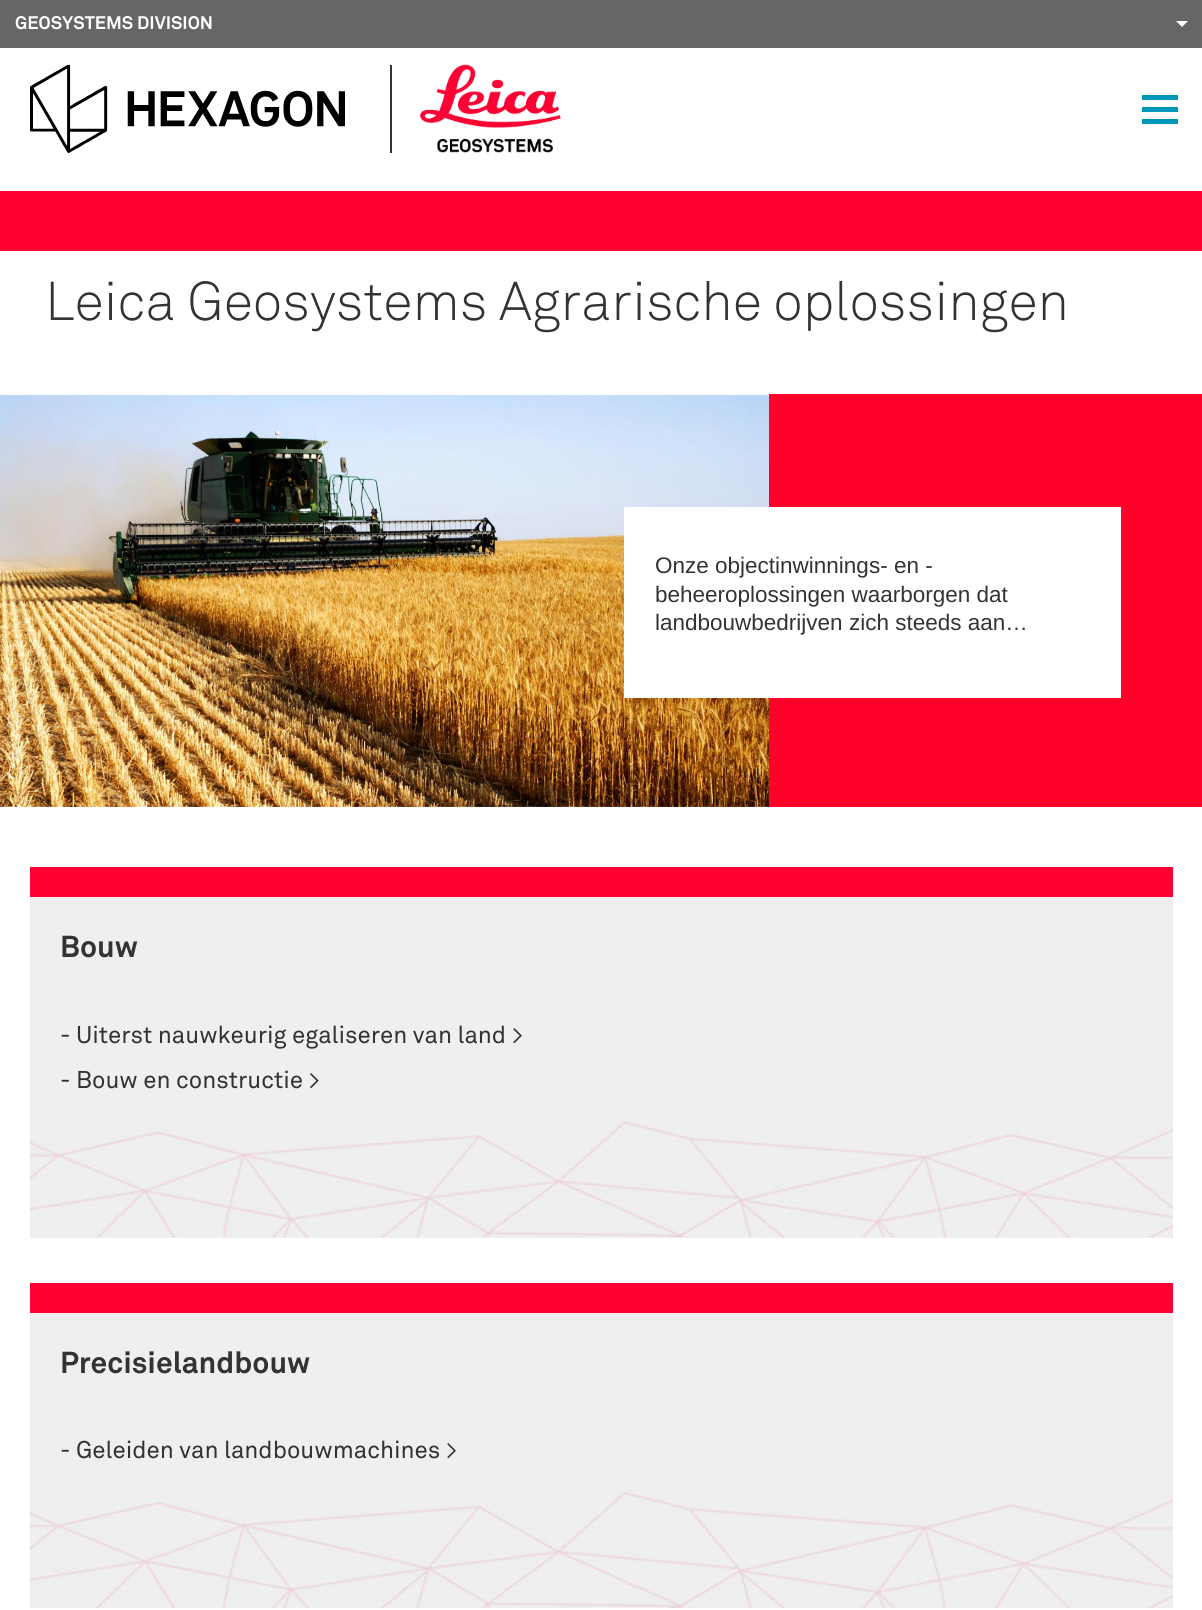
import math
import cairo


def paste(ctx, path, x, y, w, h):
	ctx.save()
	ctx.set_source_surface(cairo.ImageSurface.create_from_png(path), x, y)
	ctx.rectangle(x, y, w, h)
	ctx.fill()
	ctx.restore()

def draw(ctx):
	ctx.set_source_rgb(1, 1, 1)
	ctx.paint()
	ctx.set_source_rgb(0.4, 0.4, 0.4)
	ctx.rectangle(0, 0, 1202, 48)
	ctx.fill()
	ctx.select_font_face('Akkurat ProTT', cairo.FONT_SLANT_NORMAL, cairo.FONT_WEIGHT_BOLD)
	ctx.set_font_size(18)
	ctx.set_source_rgb(1, 1, 1)
	ctx.move_to(15, 29)
	ctx.show_text('GEOSYSTEMS DIVISION')
	ctx.new_path()
	ctx.move_to(1176, 21)
	ctx.line_to(1188, 21)
	ctx.line_to(1182, 27)
	ctx.close_path()
	ctx.fill()
	ctx.set_source_rgb(0.2, 0.2, 0.2)
	ctx.rectangle(390, 65, 2, 88)
	ctx.fill()
	paste(ctx, 'media/1.png', 30, 65, 315, 88)
	paste(ctx, 'media/2.png', 420, 64, 141, 89)
	ctx.set_source_rgb(0, 0.592, 0.729)
	ctx.rectangle(1142, 95, 36, 5)
	ctx.rectangle(1142, 107, 36, 5)
	ctx.rectangle(1142, 119, 36, 5)
	ctx.fill()
	ctx.set_source_rgb(1, 0, 0.2)
	ctx.rectangle(0, 191, 1202, 60)
	ctx.fill()
	ctx.select_font_face('Akkurat ProTT Light')
	ctx.set_font_size(54)
	ctx.set_source_rgb(0.2, 0.2, 0.2)
	ctx.move_to(45, 320)
	ctx.show_text('Leica Geosystems Agrarische oplossingen')
	paste(ctx, 'media/3.png', 0, 395, 769, 412)
	ctx.set_source_rgb(1, 0.004, 0.161)
	ctx.rectangle(769, 394, 433, 413)
	ctx.fill()
	ctx.set_source_rgb(1, 1, 1)
	ctx.rectangle(624, 507, 497, 191)
	ctx.fill()
	ctx.select_font_face('Liberation Sans')
	ctx.set_font_size(22.5)
	ctx.set_source_rgb(0.2, 0.2, 0.2)
	for x, y, s in [
		(655, 573, 'Onze objectinwinnings- en -'),
		(655, 602, 'beheeroplossingen waarborgen dat'),
		(655, 630, 'landbouwbedrijven zich steeds aan…'),
	]:
		ctx.move_to(x, y)
		ctx.show_text(s)
	ctx.set_source_rgb(0.937, 0.937, 0.937)
	ctx.rectangle(30, 897, 1143, 341)
	ctx.fill()
	paste(ctx, 'media/4.png', 30, 1118, 1143, 120)
	ctx.set_source_rgb(1, 0, 0.2)
	ctx.rectangle(30, 867, 1143, 30)
	ctx.fill()
	ctx.select_font_face('Akkurat ProTT', cairo.FONT_SLANT_NORMAL, cairo.FONT_WEIGHT_BOLD)
	ctx.set_font_size(30)
	ctx.set_source_rgb(0.2, 0.2, 0.2)
	ctx.move_to(60, 957)
	ctx.show_text('Bouw')
	ctx.select_font_face('Akkurat ProTT')
	ctx.set_font_size(24)
	ctx.move_to(60, 1043)
	ctx.show_text('- Uiterst nauwkeurig egaliseren van land >')
	ctx.move_to(60, 1088)
	ctx.show_text('- Bouw en constructie >')
	ctx.set_source_rgb(0.937, 0.937, 0.937)
	ctx.rectangle(30, 1313, 1143, 178)
	ctx.fill()
	paste(ctx, 'media/5.png', 30, 1491, 1143, 117)
	ctx.set_source_rgb(1, 0, 0.2)
	ctx.rectangle(30, 1283, 1143, 30)
	ctx.fill()
	ctx.select_font_face('Akkurat ProTT', cairo.FONT_SLANT_NORMAL, cairo.FONT_WEIGHT_BOLD)
	ctx.set_font_size(30)
	ctx.set_source_rgb(0.2, 0.2, 0.2)
	ctx.move_to(60, 1373)
	ctx.show_text('Precisielandbouw')
	ctx.select_font_face('Akkurat ProTT')
	ctx.set_font_size(24)
	ctx.move_to(60, 1458)
	ctx.show_text('- Geleiden van landbouwmachines >')


surface = cairo.ImageSurface(cairo.FORMAT_RGB24, 1202, 1610)
ctx = cairo.Context(surface)
options = cairo.FontOptions()
options.set_hint_metrics(cairo.HINT_METRICS_OFF)
options.set_hint_style(cairo.HINT_STYLE_NONE)
ctx.set_font_options(options)
ctx.set_miter_limit(4)
draw(ctx)
surface.write_to_png('image.png')
